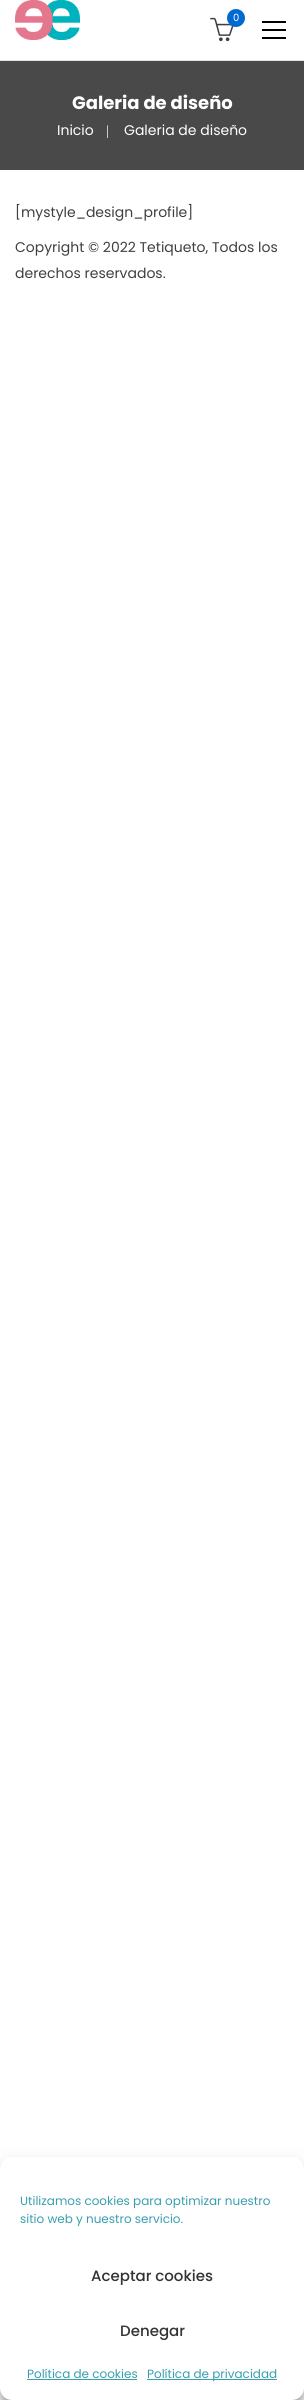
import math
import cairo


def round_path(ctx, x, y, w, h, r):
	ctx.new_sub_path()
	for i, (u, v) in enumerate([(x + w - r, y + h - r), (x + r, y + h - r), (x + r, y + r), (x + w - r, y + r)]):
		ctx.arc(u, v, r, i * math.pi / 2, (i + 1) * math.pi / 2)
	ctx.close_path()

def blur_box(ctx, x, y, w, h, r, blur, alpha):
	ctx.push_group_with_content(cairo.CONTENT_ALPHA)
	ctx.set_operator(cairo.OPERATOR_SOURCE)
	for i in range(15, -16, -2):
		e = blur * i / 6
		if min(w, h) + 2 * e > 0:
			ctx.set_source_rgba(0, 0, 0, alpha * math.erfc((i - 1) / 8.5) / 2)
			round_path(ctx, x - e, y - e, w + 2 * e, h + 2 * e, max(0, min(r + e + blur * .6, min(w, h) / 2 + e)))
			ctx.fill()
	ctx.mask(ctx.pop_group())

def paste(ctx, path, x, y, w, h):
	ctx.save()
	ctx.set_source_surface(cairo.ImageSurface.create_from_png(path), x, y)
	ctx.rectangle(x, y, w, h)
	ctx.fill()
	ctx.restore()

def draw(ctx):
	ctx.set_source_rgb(1, 1, 1)
	ctx.paint()
	ctx.set_source_rgb(0.898, 0.898, 0.898)
	ctx.rectangle(0, 60, 304, 1)
	ctx.fill()
	paste(ctx, 'media/1.png', 15, 0, 65, 40)
	paste(ctx, 'media/2.png', 210, 17, 24, 25)
	ctx.set_source_rgb(0, 0.416, 0.816)
	ctx.arc(236, 18, 9, 0, 2 * math.pi)
	ctx.fill()
	ctx.select_font_face('Poppins')
	ctx.set_font_size(10)
	ctx.set_source_rgb(1, 1, 1)
	ctx.move_to(233, 21)
	ctx.show_text('0')
	ctx.set_source_rgb(0, 0, 0)
	ctx.rectangle(262, 21, 24, 2)
	ctx.rectangle(262, 29, 24, 2)
	ctx.rectangle(262, 37, 24, 2)
	ctx.fill()
	ctx.set_source_rgb(0.286, 0.286, 0.286)
	ctx.rectangle(0, 61, 304, 109)
	ctx.fill()
	ctx.select_font_face('Poppins', cairo.FONT_SLANT_NORMAL, cairo.FONT_WEIGHT_BOLD)
	ctx.set_font_size(18)
	ctx.set_source_rgb(1, 1, 1)
	ctx.move_to(72, 109)
	ctx.show_text('Galeria de diseño')
	ctx.select_font_face('Poppins')
	ctx.set_font_size(14)
	ctx.move_to(57, 135)
	ctx.show_text('Inicio')
	ctx.select_font_face('Liberation Serif')
	ctx.move_to(106, 135)
	ctx.show_text('|')
	ctx.select_font_face('Poppins')
	ctx.move_to(124, 135)
	ctx.show_text('Galeria de diseño')
	ctx.set_source_rgb(0.247, 0.247, 0.247)
	for x, y, s in [
		(15, 217, '[mystyle_design_profile]'),
		(15, 252, 'Copyright © 2022 Tetiqueto, Todos los'),
		(15, 278, 'derechos reservados.'),
	]:
		ctx.move_to(x, y)
		ctx.show_text(s)
	ctx.set_source_rgb(0, 0, 0)
	blur_box(ctx, 0, 2163, 304, 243, 12, 3, 0.23)
	blur_box(ctx, 0, 2167, 304, 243, 12, 10, 0.19)
	ctx.set_source_rgb(1, 1, 1)
	round_path(ctx, 0, 2157, 304, 243, 12)
	ctx.fill()
	ctx.set_font_size(12)
	ctx.set_source_rgb(0.22, 0.624, 0.686)
	ctx.move_to(20, 2205)
	ctx.show_text('Utilizamos cookies para optimizar nuestro')
	ctx.move_to(20, 2223)
	ctx.show_text('sitio web y nuestro servicio.')
	ctx.select_font_face('Poppins Medium')
	ctx.set_font_size(15)
	ctx.set_source_rgb(0.2, 0.2, 0.2)
	ctx.move_to(91, 2281)
	ctx.show_text('Aceptar cookies')
	ctx.move_to(120, 2336)
	ctx.show_text('Denegar')
	ctx.select_font_face('Poppins')
	ctx.set_font_size(12)
	ctx.set_source_rgb(0.22, 0.624, 0.686)
	ctx.move_to(27, 2378)
	ctx.show_text('Política de cookies')
	ctx.rectangle(27, 2379, 110, 1)
	ctx.fill()
	ctx.rectangle(147, 2379, 130, 1)
	ctx.fill()
	ctx.move_to(147, 2378)
	ctx.show_text('Política de privacidad')


surface = cairo.ImageSurface(cairo.FORMAT_RGB24, 304, 2400)
ctx = cairo.Context(surface)
options = cairo.FontOptions()
options.set_hint_metrics(cairo.HINT_METRICS_OFF)
options.set_hint_style(cairo.HINT_STYLE_NONE)
ctx.set_font_options(options)
ctx.set_miter_limit(4)
draw(ctx)
surface.write_to_png('image.png')
